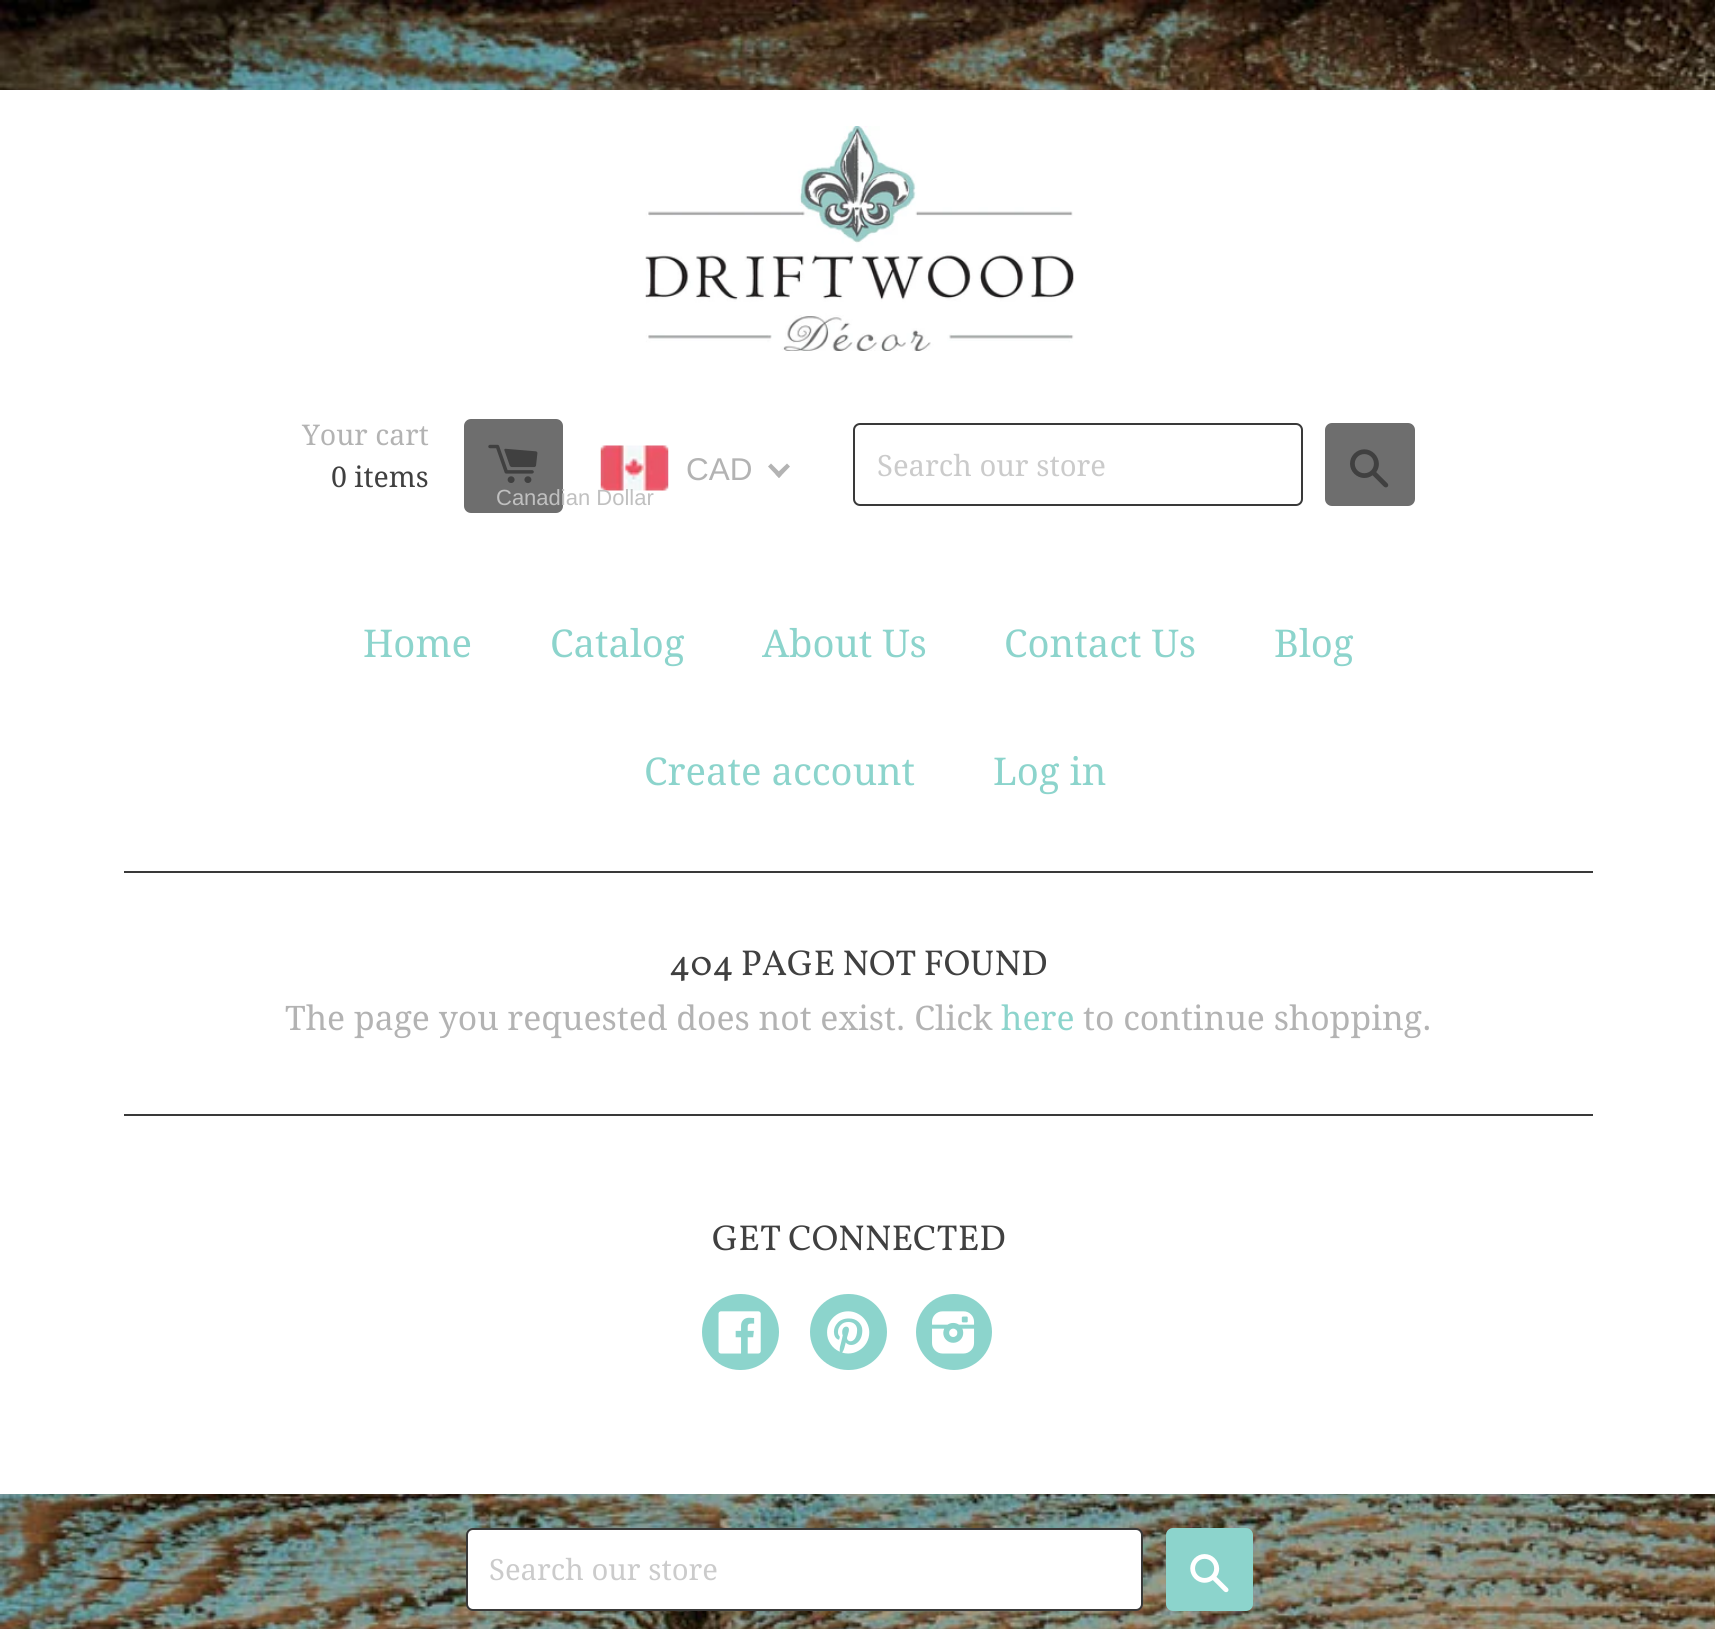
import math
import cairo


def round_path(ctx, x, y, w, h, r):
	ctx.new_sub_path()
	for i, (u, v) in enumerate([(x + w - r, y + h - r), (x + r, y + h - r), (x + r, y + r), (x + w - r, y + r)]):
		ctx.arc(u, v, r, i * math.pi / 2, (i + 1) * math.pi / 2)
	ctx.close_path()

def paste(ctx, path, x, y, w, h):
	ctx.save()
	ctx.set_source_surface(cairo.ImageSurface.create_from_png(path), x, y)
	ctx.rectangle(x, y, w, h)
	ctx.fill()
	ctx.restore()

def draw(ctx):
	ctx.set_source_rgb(1, 1, 1)
	ctx.paint()
	paste(ctx, 'media/1.png', 0, 0, 1715, 1629)
	ctx.set_source_rgb(1, 1, 1)
	ctx.rectangle(0, 90, 1715, 1404)
	ctx.fill()
	paste(ctx, 'media/2.png', 645, 126, 429, 225)
	ctx.select_font_face('Droid Serif')
	ctx.set_font_size(28.5)
	ctx.set_source_rgb(0.702, 0.702, 0.702)
	ctx.move_to(302, 445)
	ctx.show_text('Your cart')
	ctx.set_source_rgb(0.251, 0.251, 0.251)
	ctx.move_to(331, 487)
	ctx.show_text('0 items')
	ctx.set_source_rgb(0.431, 0.431, 0.431)
	round_path(ctx, 464, 419, 99, 94, 7)
	ctx.fill()
	paste(ctx, 'media/3.png', 488, 444, 50, 39)
	paste(ctx, 'media/4.png', 600, 445, 69, 46)
	ctx.select_font_face('Liberation Sans')
	ctx.set_font_size(31.5)
	ctx.set_source_rgb(0.702, 0.702, 0.702)
	ctx.move_to(686, 480)
	ctx.show_text('CAD')
	ctx.new_path()
	ctx.move_to(787, 463.5)
	ctx.line_to(790, 466.5)
	ctx.line_to(779, 478)
	ctx.line_to(775.5, 474.5)
	ctx.close_path()
	ctx.fill()
	ctx.new_path()
	ctx.move_to(771, 463.5)
	ctx.line_to(782, 474.5)
	ctx.line_to(779, 478)
	ctx.line_to(768, 466.5)
	ctx.close_path()
	ctx.fill()
	ctx.set_font_size(22)
	ctx.set_source_rgb(0.753, 0.753, 0.753)
	ctx.move_to(496, 505)
	ctx.show_text('Canadian Dollar')
	round_path(ctx, 854, 424, 448, 81, 6)
	ctx.set_source_rgb(0.224, 0.224, 0.224)
	ctx.stroke()
	ctx.select_font_face('Droid Serif')
	ctx.set_font_size(29.25)
	ctx.set_source_rgb(0.796, 0.796, 0.796)
	ctx.move_to(877, 476)
	ctx.show_text('Search our store')
	ctx.set_source_rgb(0.431, 0.431, 0.431)
	round_path(ctx, 1325, 423, 90, 83, 7)
	ctx.fill()
	paste(ctx, 'media/5.png', 1350, 449, 39, 39)
	ctx.set_font_size(38.25)
	ctx.set_source_rgb(0.549, 0.831, 0.8)
	for x, y, s in [
		(363, 657, 'Home'),
		(550, 657, 'Catalog'),
		(762, 657, 'About Us'),
		(1004, 657, 'Contact Us'),
		(1274, 657, 'Blog'),
		(644, 785, 'Create account'),
		(993, 785, 'Log in'),
	]:
		ctx.move_to(x, y)
		ctx.show_text(s)
	ctx.set_source_rgb(0.224, 0.224, 0.224)
	ctx.rectangle(124, 871, 1469, 2)
	ctx.fill()
	ctx.select_font_face('Vollkorn')
	ctx.set_font_size(36)
	ctx.set_source_rgb(0.251, 0.251, 0.251)
	ctx.move_to(669, 975)
	ctx.show_text('404 PAGE NOT FOUND')
	ctx.select_font_face('Droid Serif')
	ctx.set_font_size(33.75)
	ctx.set_source_rgb(0.702, 0.702, 0.702)
	ctx.move_to(285, 1030)
	ctx.show_text('The page you requested does not exist. Click')
	ctx.set_source_rgb(0.549, 0.831, 0.8)
	ctx.move_to(1001, 1030)
	ctx.show_text('here')
	ctx.set_source_rgb(0.702, 0.702, 0.702)
	ctx.move_to(1083, 1030)
	ctx.show_text('to continue shopping.')
	ctx.set_source_rgb(0.224, 0.224, 0.224)
	ctx.rectangle(124, 1114, 1469, 2)
	ctx.fill()
	ctx.select_font_face('Vollkorn')
	ctx.set_font_size(36)
	ctx.set_source_rgb(0.251, 0.251, 0.251)
	ctx.move_to(712, 1250)
	ctx.show_text('GET CONNECTED')
	ctx.set_source_rgb(0.549, 0.831, 0.8)
	round_path(ctx, 702, 1294, 77, 76, 38)
	ctx.fill()
	paste(ctx, 'media/6.png', 718, 1311, 43, 43)
	round_path(ctx, 810, 1294, 77, 76, 38)
	ctx.fill()
	paste(ctx, 'media/7.png', 827, 1311, 43, 43)
	ctx.arc(954, 1332, 38, 0, 2 * math.pi)
	ctx.fill()
	paste(ctx, 'media/8.png', 932, 1311, 43, 43)
	ctx.set_source_rgb(1, 1, 1)
	round_path(ctx, 467, 1529, 675, 81, 6)
	ctx.fill_preserve()
	ctx.set_source_rgb(0.224, 0.224, 0.224)
	ctx.stroke()
	ctx.select_font_face('Droid Serif')
	ctx.set_font_size(29.25)
	ctx.set_source_rgb(0.796, 0.796, 0.796)
	ctx.move_to(489, 1580)
	ctx.show_text('Search our store')
	ctx.set_source_rgb(0.549, 0.831, 0.8)
	round_path(ctx, 1166, 1528, 87, 83, 7)
	ctx.fill()
	paste(ctx, 'media/9.png', 1190, 1554, 39, 39)


surface = cairo.ImageSurface(cairo.FORMAT_RGB24, 1715, 1629)
ctx = cairo.Context(surface)
options = cairo.FontOptions()
options.set_hint_metrics(cairo.HINT_METRICS_OFF)
options.set_hint_style(cairo.HINT_STYLE_NONE)
ctx.set_font_options(options)
ctx.set_miter_limit(4)
draw(ctx)
surface.write_to_png('image.png')
